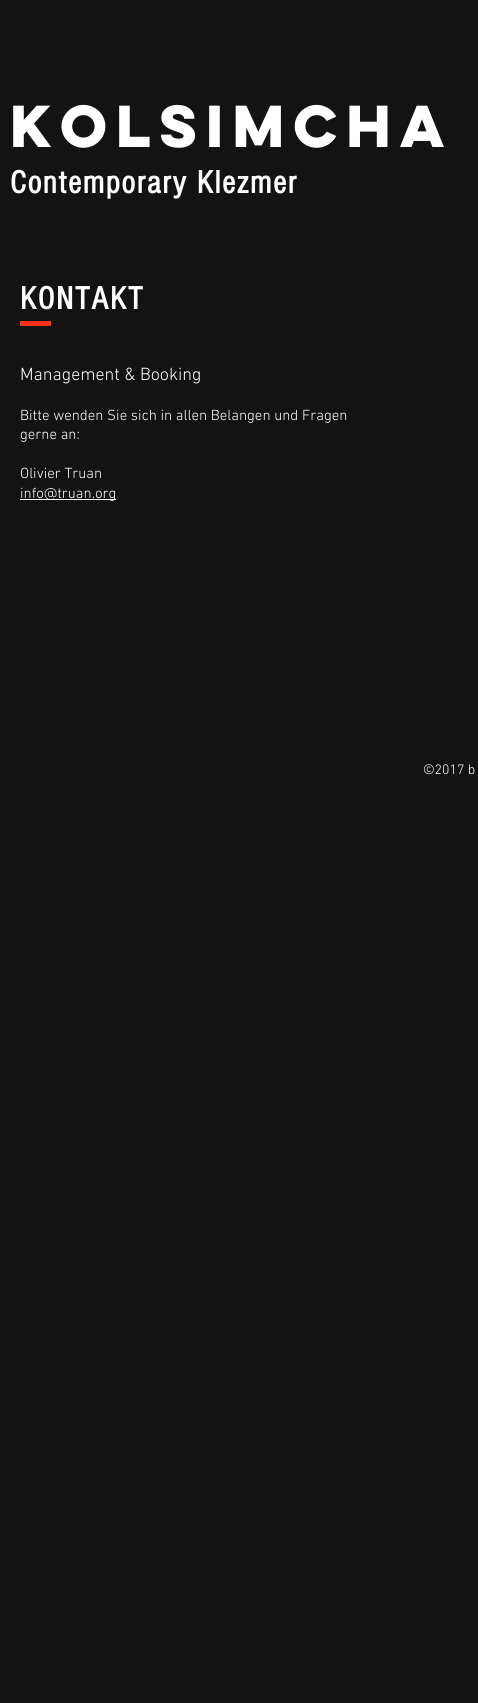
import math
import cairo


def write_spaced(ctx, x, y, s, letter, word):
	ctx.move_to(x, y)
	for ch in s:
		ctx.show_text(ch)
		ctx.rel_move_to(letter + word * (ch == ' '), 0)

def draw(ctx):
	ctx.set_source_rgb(0.078, 0.078, 0.078)
	ctx.paint()
	ctx.select_font_face('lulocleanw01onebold', cairo.FONT_SLANT_NORMAL, cairo.FONT_WEIGHT_BOLD)
	ctx.set_font_size(53)
	ctx.set_source_rgb(1, 1, 1)
	write_spaced(ctx, 10, 147, 'KOLSIMCHA', -2.75, 0)
	ctx.select_font_face('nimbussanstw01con', cairo.FONT_SLANT_NORMAL, cairo.FONT_WEIGHT_BOLD)
	ctx.set_font_size(33)
	write_spaced(ctx, 10, 193, 'Contemporary Klezmer', 1.6, 0)
	write_spaced(ctx, 20, 309, 'KONTAKT', 1.6, 0)
	ctx.set_source_rgb(1, 0.188, 0.098)
	ctx.rectangle(20, 321, 31, 5)
	ctx.fill()
	ctx.select_font_face('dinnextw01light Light')
	ctx.set_font_size(18)
	ctx.set_source_rgb(1, 1, 1)
	ctx.move_to(20, 380)
	ctx.show_text('Management & Booking')
	ctx.set_font_size(15)
	for x, y, s in [
		(20, 420, 'Bitte wenden Sie sich in allen Belangen und Fragen'),
		(20, 439, 'gerne an:'),
		(20, 478, 'Olivier Truan'),
	]:
		ctx.move_to(x, y)
		ctx.show_text(s)
	ctx.rectangle(20, 499, 96, 1)
	ctx.fill()
	ctx.move_to(20, 498)
	ctx.show_text('info@truan.org')
	ctx.set_font_size(14)
	ctx.move_to(423, 774)
	ctx.show_text('©2017 b')


surface = cairo.ImageSurface(cairo.FORMAT_RGB24, 478, 1703)
ctx = cairo.Context(surface)
options = cairo.FontOptions()
options.set_hint_metrics(cairo.HINT_METRICS_OFF)
options.set_hint_style(cairo.HINT_STYLE_NONE)
ctx.set_font_options(options)
ctx.set_miter_limit(4)
draw(ctx)
surface.write_to_png('image.png')
